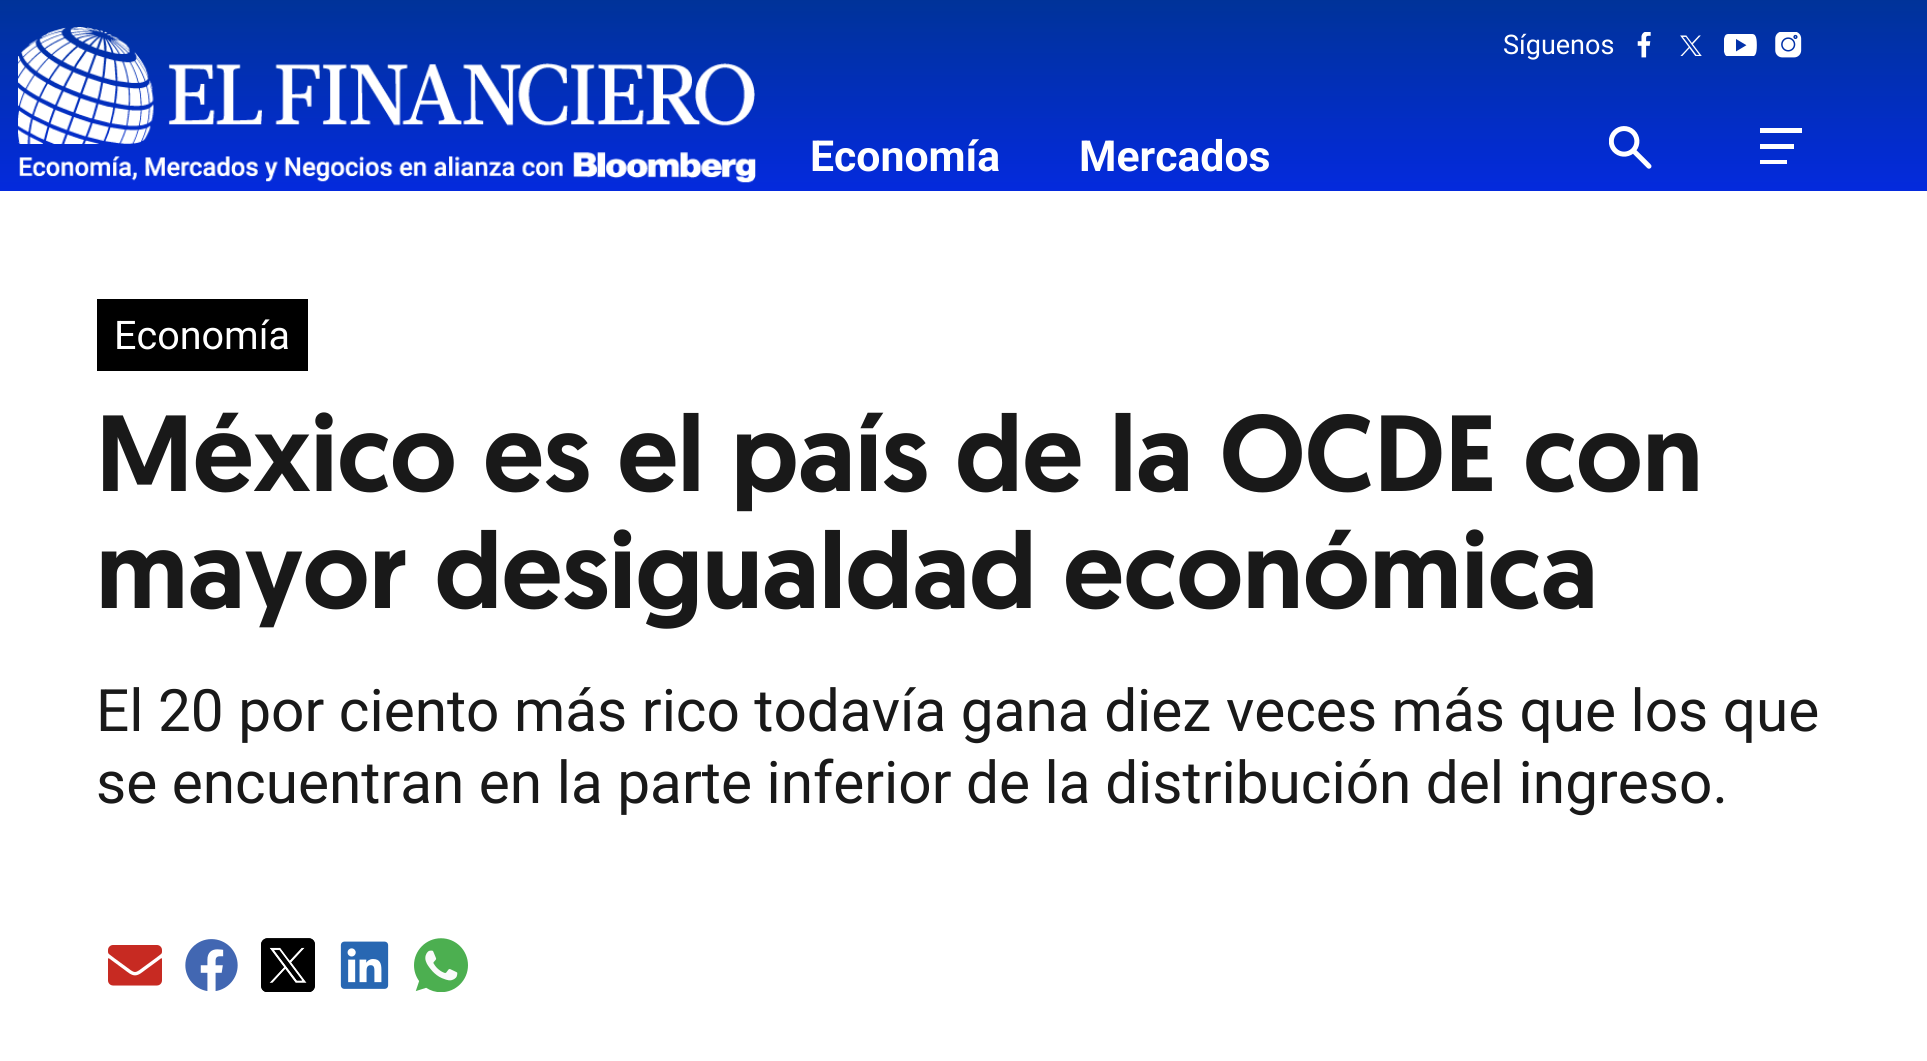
import math
import cairo


def paste(ctx, path, x, y, w, h):
	ctx.save()
	ctx.set_source_surface(cairo.ImageSurface.create_from_png(path), x, y)
	ctx.rectangle(x, y, w, h)
	ctx.fill()
	ctx.restore()

def draw(ctx):
	ctx.set_source_rgb(1, 1, 1)
	ctx.paint()
	gradient = cairo.LinearGradient(964, 0, 964, 191)
	gradient.add_color_stop_rgba(0, 0, 0.2, 0.6, 1)
	gradient.add_color_stop_rgba(1, 0.016, 0.165, 0.867, 1)
	ctx.set_source(gradient)
	ctx.rectangle(0, 0, 1927, 191)
	ctx.fill()
	paste(ctx, 'media/1.png', 18, 27, 738, 156)
	ctx.select_font_face('Roboto')
	ctx.set_font_size(27)
	ctx.set_source_rgb(1, 1, 1)
	ctx.move_to(1503, 54)
	ctx.show_text('Síguenos')
	paste(ctx, 'media/2.png', 1637, 32, 14, 26)
	paste(ctx, 'media/3.png', 1680, 35, 22, 21)
	paste(ctx, 'media/4.png', 1724, 34, 33, 22)
	paste(ctx, 'media/5.png', 1775, 32, 27, 26)
	paste(ctx, 'media/6.png', 1609, 126, 43, 43)
	ctx.rectangle(1760, 160, 27, 4)
	ctx.rectangle(1760, 144, 34, 5)
	ctx.rectangle(1760, 128, 42, 5)
	ctx.fill()
	ctx.select_font_face('Roboto', cairo.FONT_SLANT_NORMAL, cairo.FONT_WEIGHT_BOLD)
	ctx.set_font_size(42.75)
	ctx.move_to(810, 171)
	ctx.show_text('Economía')
	ctx.move_to(1079, 171)
	ctx.show_text('Mercados')
	ctx.set_source_rgb(0, 0, 0)
	ctx.rectangle(97, 299, 211, 72)
	ctx.fill()
	ctx.select_font_face('Roboto')
	ctx.set_font_size(39.5)
	ctx.set_source_rgb(1, 1, 1)
	ctx.move_to(114, 349)
	ctx.show_text('Economía')
	ctx.select_font_face('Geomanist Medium')
	ctx.set_font_size(108)
	ctx.set_source_rgb(0.098, 0.098, 0.098)
	ctx.move_to(96, 491)
	ctx.show_text('México es el país de la OCDE con')
	ctx.move_to(96, 608)
	ctx.show_text('mayor desigualdad económica')
	ctx.select_font_face('Roboto')
	ctx.set_font_size(58.5)
	ctx.move_to(96, 731)
	ctx.show_text('El 20 por ciento más rico todavía gana diez veces más que los que')
	ctx.move_to(96, 803)
	ctx.show_text('se encuentran en la parte inferior de la distribución del ingreso.')
	paste(ctx, 'media/7.png', 108, 945, 54, 41)
	paste(ctx, 'media/8.png', 185, 939, 53, 52)
	paste(ctx, 'media/9.png', 261, 938, 54, 54)
	paste(ctx, 'media/10.png', 340, 941, 49, 48)
	paste(ctx, 'media/11.png', 414, 938, 54, 54)


surface = cairo.ImageSurface(cairo.FORMAT_RGB24, 1927, 1061)
ctx = cairo.Context(surface)
options = cairo.FontOptions()
options.set_hint_metrics(cairo.HINT_METRICS_OFF)
options.set_hint_style(cairo.HINT_STYLE_NONE)
ctx.set_font_options(options)
ctx.set_miter_limit(4)
draw(ctx)
surface.write_to_png('image.png')
